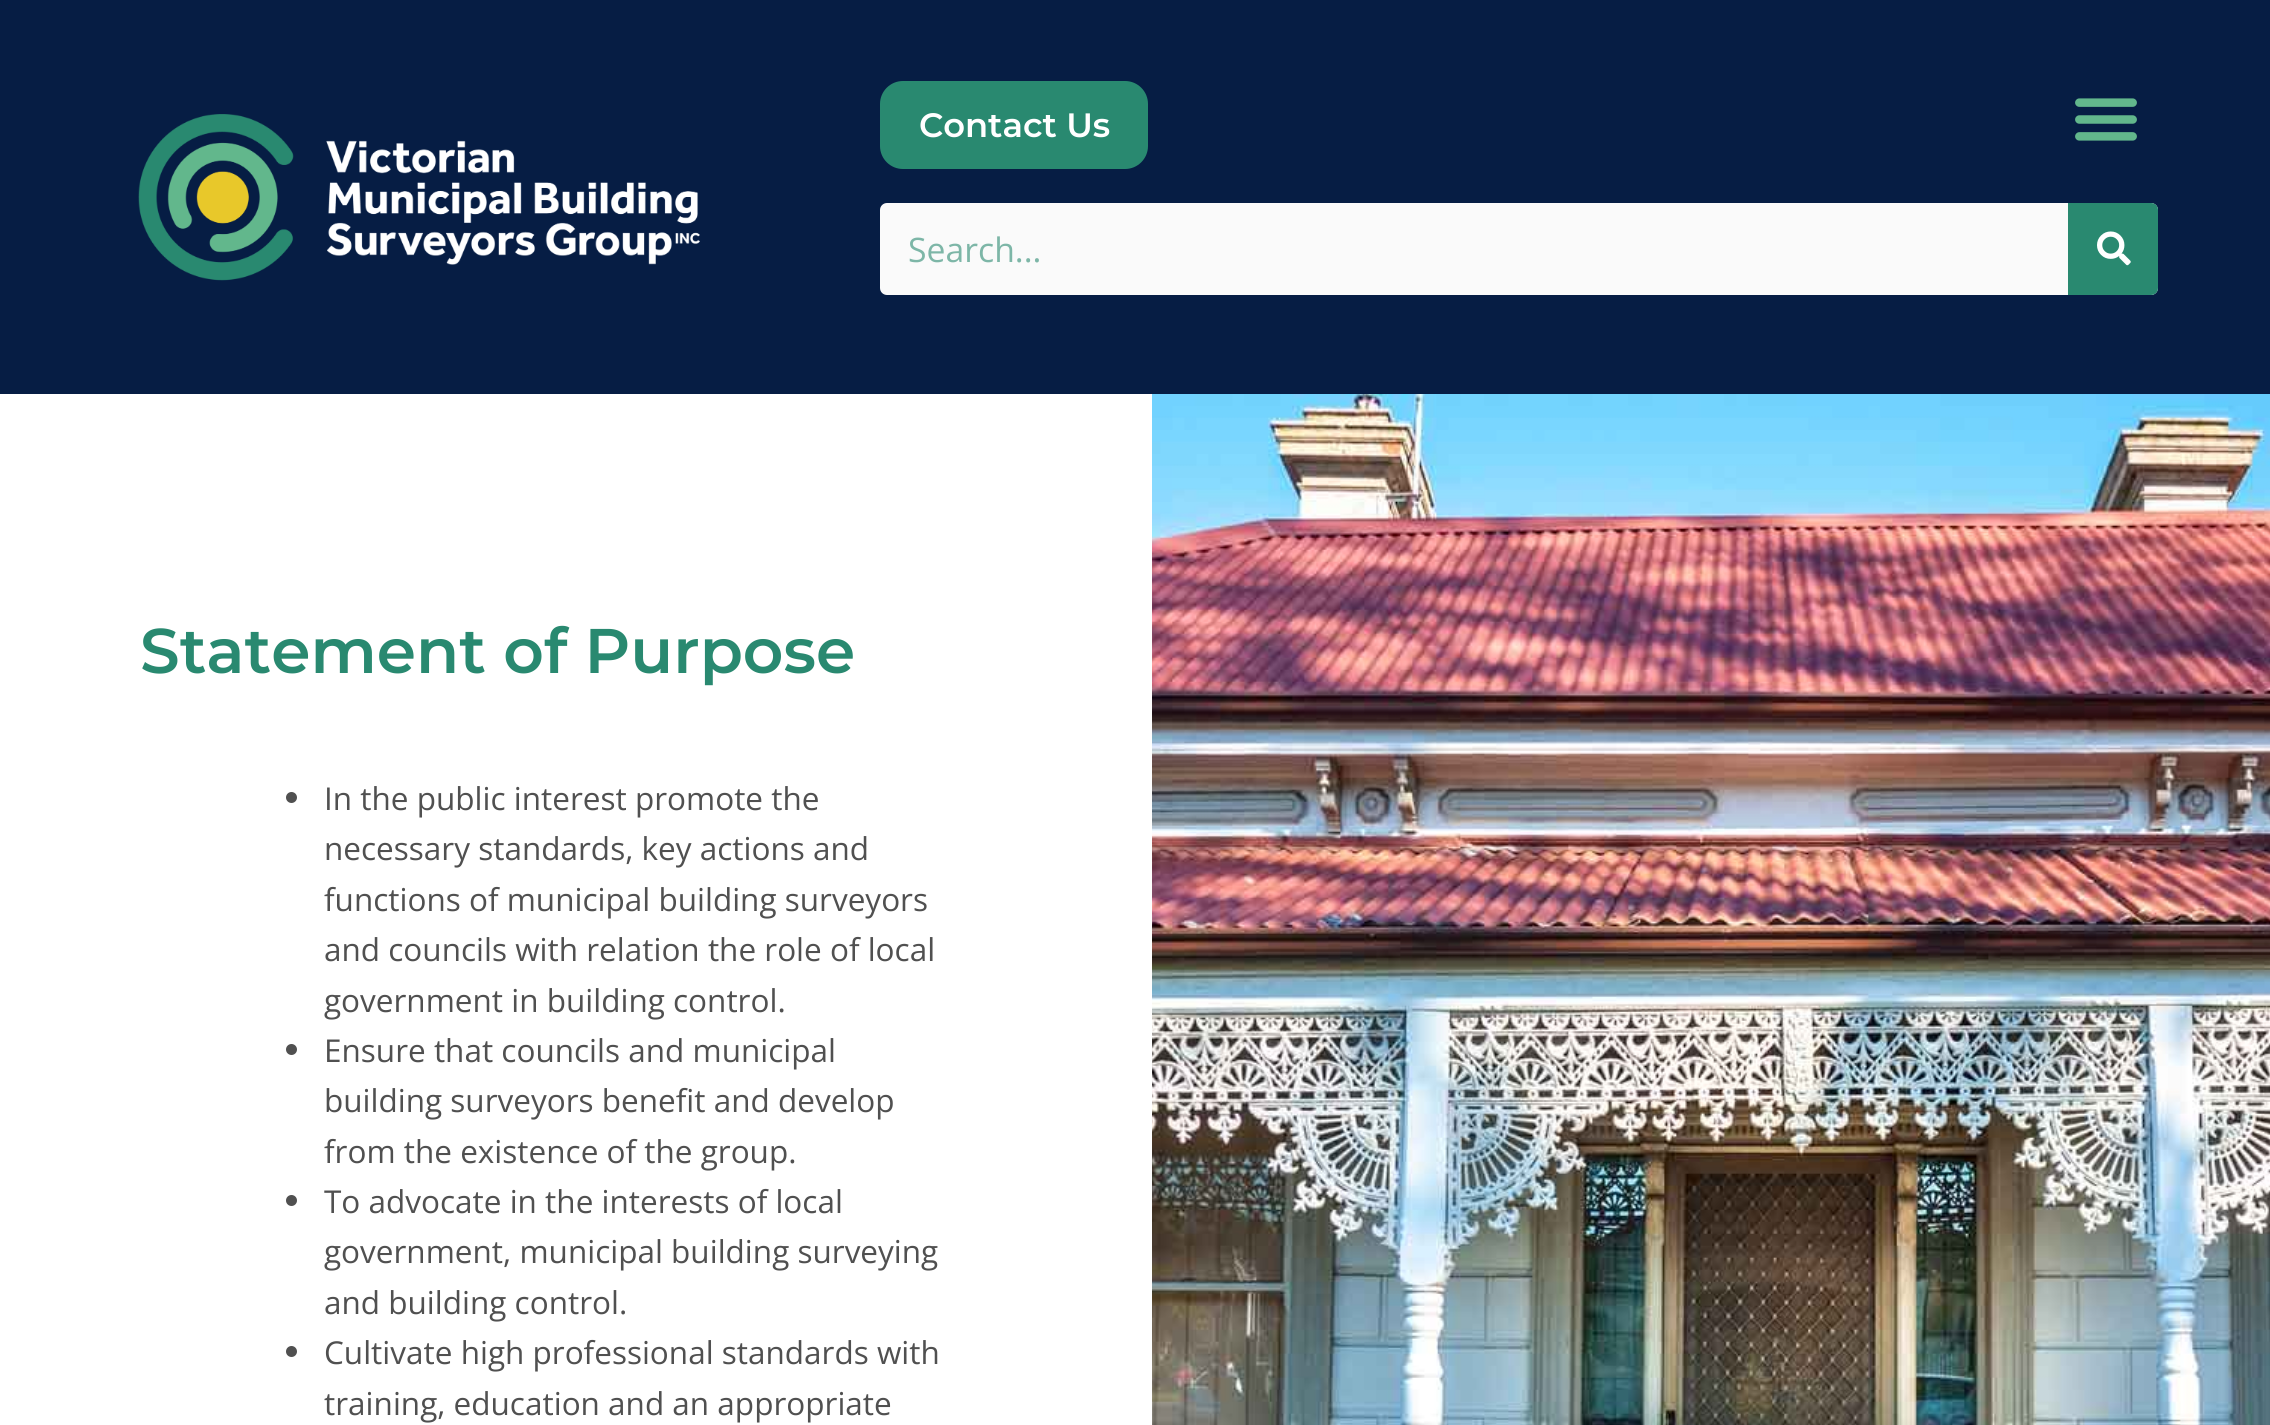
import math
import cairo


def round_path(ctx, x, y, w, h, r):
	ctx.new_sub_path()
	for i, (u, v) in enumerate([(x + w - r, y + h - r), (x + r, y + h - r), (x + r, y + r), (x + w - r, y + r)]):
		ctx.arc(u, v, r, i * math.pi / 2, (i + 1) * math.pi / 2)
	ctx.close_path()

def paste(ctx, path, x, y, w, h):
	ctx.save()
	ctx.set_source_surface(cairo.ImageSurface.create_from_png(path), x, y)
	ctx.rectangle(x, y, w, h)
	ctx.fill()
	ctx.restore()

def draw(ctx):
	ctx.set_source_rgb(1, 1, 1)
	ctx.paint()
	ctx.set_source_rgb(0.027, 0.114, 0.267)
	ctx.rectangle(0, 0, 2270, 394)
	ctx.fill()
	paste(ctx, 'media/1.png', 138, 114, 562, 167)
	ctx.set_source_rgb(0.161, 0.537, 0.439)
	round_path(ctx, 882.5, 83.5, 263, 83, 20.5)
	ctx.fill_preserve()
	ctx.set_line_width(5)
	ctx.stroke()
	ctx.select_font_face('Montserrat SemiBold')
	ctx.set_font_size(33.75)
	ctx.set_source_rgb(1, 1, 1)
	ctx.move_to(919, 137)
	ctx.show_text('Contact Us')
	paste(ctx, 'media/2.png', 2075, 98, 62, 43)
	ctx.set_source_rgb(0.98, 0.98, 0.98)
	round_path(ctx, 880, 203, 1278, 92, 7)
	ctx.fill()
	ctx.select_font_face('Open Sans')
	ctx.set_source_rgb(0.49, 0.714, 0.655)
	ctx.move_to(908, 262)
	ctx.show_text('Search...')
	ctx.set_source_rgb(0.161, 0.537, 0.439)
	ctx.new_path()
	ctx.move_to(2068, 203)
	ctx.line_to(2151, 203)
	ctx.curve_to(2155, 203, 2158, 206, 2158, 210)
	ctx.line_to(2158, 288)
	ctx.curve_to(2158, 292, 2155, 295, 2151, 295)
	ctx.line_to(2068, 295)
	ctx.close_path()
	ctx.fill()
	paste(ctx, 'media/3.png', 2097, 231, 34, 35)
	ctx.select_font_face('Montserrat SemiBold')
	ctx.set_font_size(63)
	ctx.move_to(140, 673)
	ctx.show_text('Statement of Purpose')
	ctx.set_source_rgb(0.314, 0.314, 0.314)
	ctx.new_path()
	ctx.arc(291.5, 797.5, 5.5, 0, 2 * math.pi)
	ctx.fill()
	ctx.select_font_face('Open Sans')
	ctx.set_font_size(31.5)
	for x, y, s in [
		(324, 810, 'In the public interest promote the'),
		(324, 860, 'necessary standards, key actions and'),
		(324, 911, 'functions of municipal building surveyors'),
		(324, 961, 'and councils with relation the role of local'),
		(324, 1012, 'government in building control.'),
	]:
		ctx.move_to(x, y)
		ctx.show_text(s)
	ctx.new_path()
	ctx.arc(291.5, 1049.5, 5.5, 0, 2 * math.pi)
	ctx.fill()
	for x, y, s in [
		(324, 1062, 'Ensure that councils and municipal'),
		(324, 1112, 'building surveyors benefit and develop'),
		(324, 1163, 'from the existence of the group.'),
	]:
		ctx.move_to(x, y)
		ctx.show_text(s)
	ctx.new_path()
	ctx.arc(291.5, 1200.5, 5.5, 0, 2 * math.pi)
	ctx.fill()
	for x, y, s in [
		(324, 1213, 'To advocate in the interests of local'),
		(324, 1263, 'government, municipal building surveying'),
		(324, 1314, 'and building control.'),
	]:
		ctx.move_to(x, y)
		ctx.show_text(s)
	ctx.new_path()
	ctx.arc(291.5, 1351.5, 5.5, 0, 2 * math.pi)
	ctx.fill()
	ctx.move_to(324, 1364)
	ctx.show_text('Cultivate high professional standards with')
	ctx.move_to(324, 1415)
	ctx.show_text('training, education and an appropriate')
	paste(ctx, 'media/4.png', 1152, 394, 1118, 1031)


surface = cairo.ImageSurface(cairo.FORMAT_RGB24, 2270, 1425)
ctx = cairo.Context(surface)
options = cairo.FontOptions()
options.set_hint_metrics(cairo.HINT_METRICS_OFF)
options.set_hint_style(cairo.HINT_STYLE_NONE)
ctx.set_font_options(options)
ctx.set_miter_limit(4)
draw(ctx)
surface.write_to_png('image.png')
